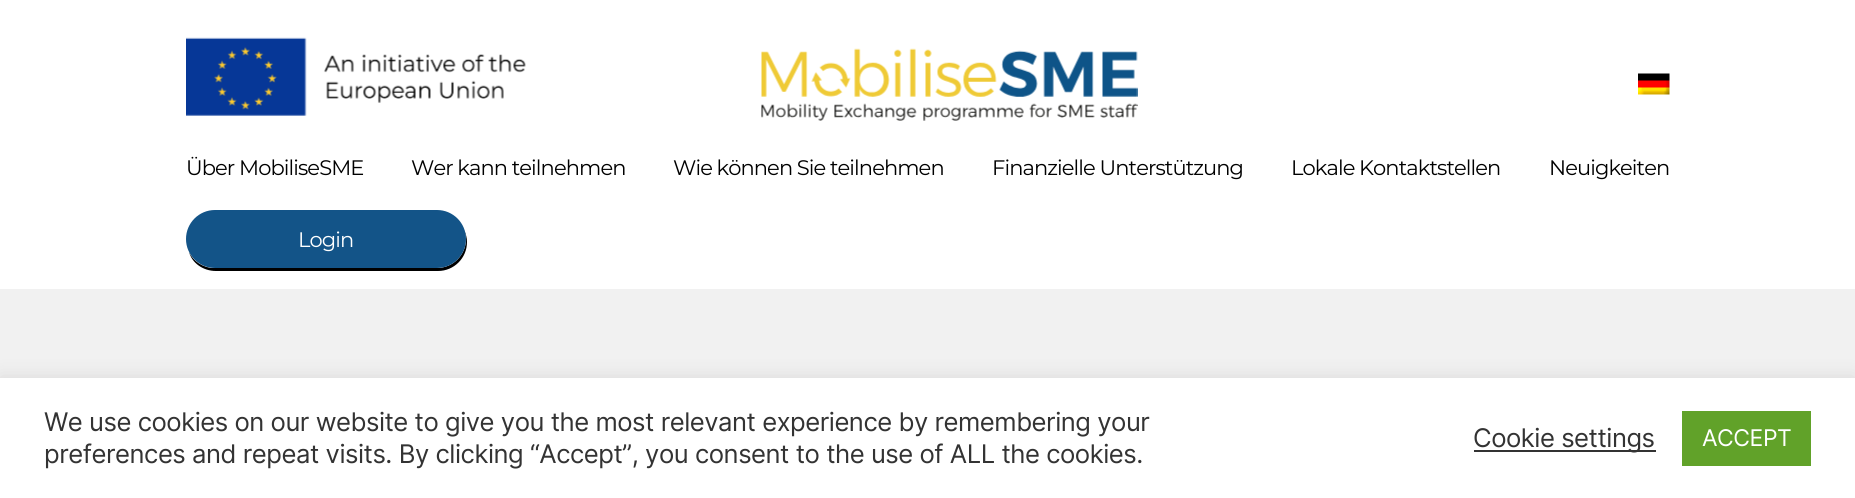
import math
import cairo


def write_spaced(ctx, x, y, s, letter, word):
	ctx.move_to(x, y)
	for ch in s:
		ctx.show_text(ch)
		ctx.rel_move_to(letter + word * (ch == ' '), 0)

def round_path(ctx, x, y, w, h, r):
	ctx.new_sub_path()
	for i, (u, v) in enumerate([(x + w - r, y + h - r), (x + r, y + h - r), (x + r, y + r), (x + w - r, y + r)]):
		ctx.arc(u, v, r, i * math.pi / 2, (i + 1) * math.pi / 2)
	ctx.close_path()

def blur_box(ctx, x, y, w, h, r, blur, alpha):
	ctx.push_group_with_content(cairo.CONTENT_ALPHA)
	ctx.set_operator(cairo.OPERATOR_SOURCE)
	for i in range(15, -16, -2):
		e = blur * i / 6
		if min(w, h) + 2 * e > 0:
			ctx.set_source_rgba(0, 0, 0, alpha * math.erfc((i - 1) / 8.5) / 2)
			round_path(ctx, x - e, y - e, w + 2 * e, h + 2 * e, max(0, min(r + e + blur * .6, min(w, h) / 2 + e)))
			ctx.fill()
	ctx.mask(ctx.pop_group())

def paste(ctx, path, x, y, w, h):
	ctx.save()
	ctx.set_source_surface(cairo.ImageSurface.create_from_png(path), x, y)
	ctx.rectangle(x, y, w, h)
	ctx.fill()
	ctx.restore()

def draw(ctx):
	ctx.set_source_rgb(1, 1, 1)
	ctx.paint()
	paste(ctx, 'media/1.png', 186, 37, 340, 79)
	paste(ctx, 'media/2.png', 761, 48, 377, 73)
	paste(ctx, 'media/3.png', 1638, 73, 32, 22)
	ctx.select_font_face('Montserrat Thin')
	ctx.set_font_size(21)
	ctx.set_source_rgb(0, 0, 0)
	for x, y, s in [
		(186, 175, 'Über MobiliseSME'),
		(411, 175, 'Wer kann teilnehmen'),
		(673, 175, 'Wie können Sie teilnehmen'),
		(992, 175, 'Finanzielle Unterstützung'),
		(1291, 175, 'Lokale Kontaktstellen'),
		(1549, 175, 'Neuigkeiten'),
	]:
		write_spaced(ctx, x, y, s, -0.9, 0)
	ctx.new_path()
	ctx.move_to(189, 252)
	ctx.curve_to(192, 263, 203, 271, 216, 271)
	ctx.line_to(438, 271)
	ctx.curve_to(454, 271, 467, 258, 467, 242)
	ctx.curve_to(467, 238, 466, 234, 464, 230)
	ctx.curve_to(465, 233, 466, 236, 466, 239)
	ctx.curve_to(466, 255, 453, 268, 437, 268)
	ctx.line_to(214, 268)
	ctx.curve_to(203, 268, 193, 261, 189, 252)
	ctx.close_path()
	ctx.fill()
	ctx.set_source_rgb(0.078, 0.329, 0.533)
	round_path(ctx, 186, 210, 280, 58, 29)
	ctx.fill()
	ctx.set_source_rgb(1, 1, 1)
	write_spaced(ctx, 298, 247, 'Login', -0.9, 0)
	ctx.set_source_rgb(0.945, 0.945, 0.945)
	ctx.rectangle(0, 289, 1855, 89)
	ctx.fill()
	ctx.set_source_rgb(0.675, 0.671, 0.671)
	blur_box(ctx, 0, 376, 1855, 121, 0, 9, 0.3)
	ctx.set_source_rgb(1, 1, 1)
	ctx.rectangle(0, 378, 1855, 120)
	ctx.fill()
	ctx.select_font_face('Inter')
	ctx.set_font_size(25.65)
	ctx.set_source_rgb(0.2, 0.2, 0.2)
	write_spaced(ctx, 44, 431, 'We use cookies on our website to give you the most relevant experience by remembering your', -0.47, 0)
	write_spaced(ctx, 44, 463, 'preferences and repeat visits. By clicking “Accept”, you consent to the use of ALL the cookies.', -0.47, 0)
	ctx.rectangle(1474, 450, 182, 2)
	ctx.fill()
	write_spaced(ctx, 1473, 447, 'Cookie settings', -0.47, 0)
	ctx.set_source_rgb(0.38, 0.635, 0.161)
	ctx.rectangle(1682, 411, 129, 55)
	ctx.fill()
	ctx.set_font_size(23)
	ctx.set_source_rgb(1, 1, 1)
	write_spaced(ctx, 1702, 446, 'ACCEPT', -0.47, 0)


surface = cairo.ImageSurface(cairo.FORMAT_RGB24, 1855, 498)
ctx = cairo.Context(surface)
options = cairo.FontOptions()
options.set_hint_metrics(cairo.HINT_METRICS_OFF)
options.set_hint_style(cairo.HINT_STYLE_NONE)
ctx.set_font_options(options)
ctx.set_miter_limit(4)
draw(ctx)
surface.write_to_png('image.png')
